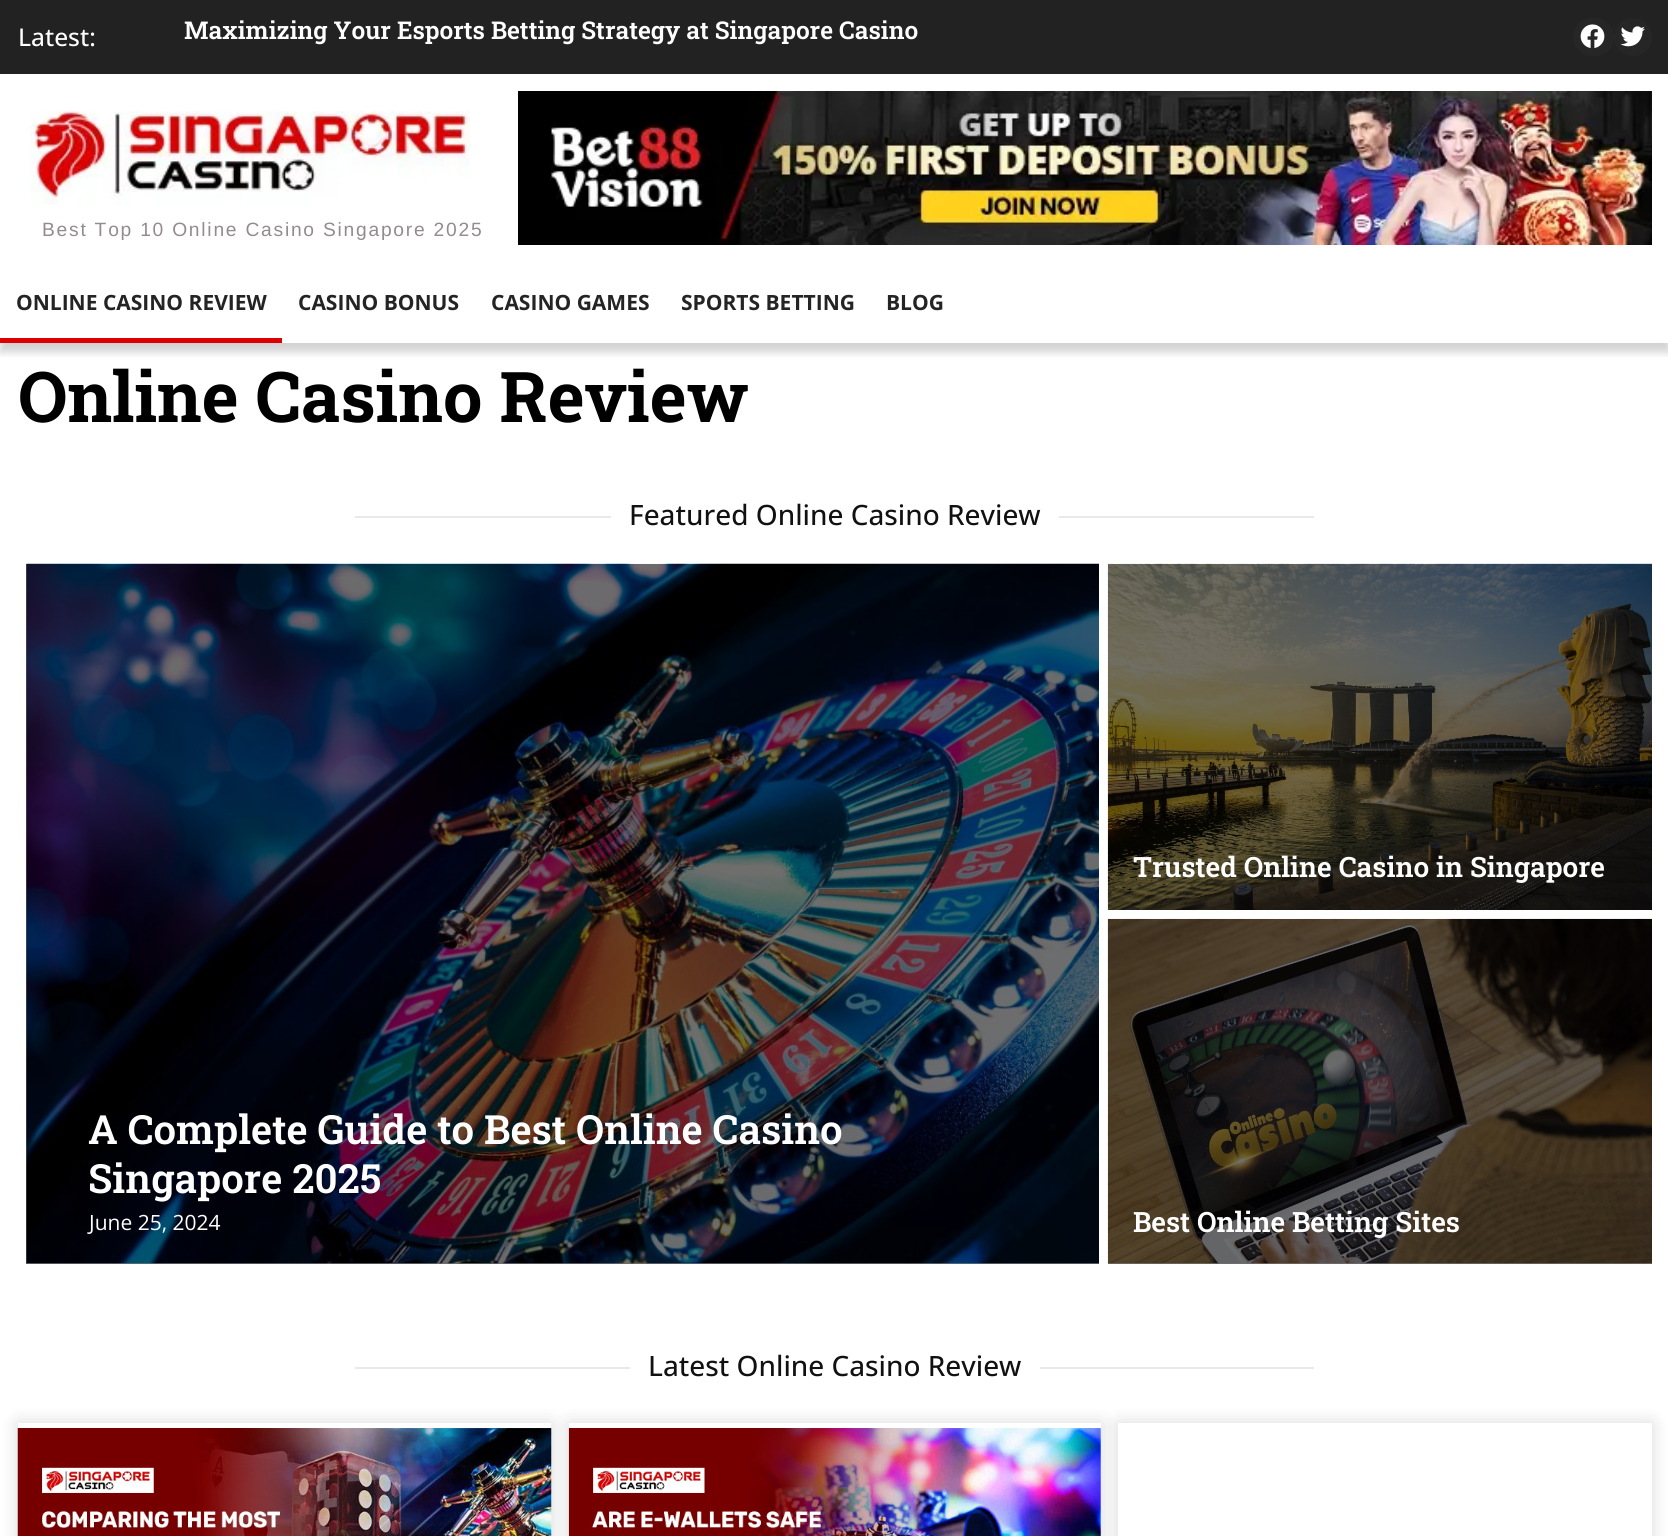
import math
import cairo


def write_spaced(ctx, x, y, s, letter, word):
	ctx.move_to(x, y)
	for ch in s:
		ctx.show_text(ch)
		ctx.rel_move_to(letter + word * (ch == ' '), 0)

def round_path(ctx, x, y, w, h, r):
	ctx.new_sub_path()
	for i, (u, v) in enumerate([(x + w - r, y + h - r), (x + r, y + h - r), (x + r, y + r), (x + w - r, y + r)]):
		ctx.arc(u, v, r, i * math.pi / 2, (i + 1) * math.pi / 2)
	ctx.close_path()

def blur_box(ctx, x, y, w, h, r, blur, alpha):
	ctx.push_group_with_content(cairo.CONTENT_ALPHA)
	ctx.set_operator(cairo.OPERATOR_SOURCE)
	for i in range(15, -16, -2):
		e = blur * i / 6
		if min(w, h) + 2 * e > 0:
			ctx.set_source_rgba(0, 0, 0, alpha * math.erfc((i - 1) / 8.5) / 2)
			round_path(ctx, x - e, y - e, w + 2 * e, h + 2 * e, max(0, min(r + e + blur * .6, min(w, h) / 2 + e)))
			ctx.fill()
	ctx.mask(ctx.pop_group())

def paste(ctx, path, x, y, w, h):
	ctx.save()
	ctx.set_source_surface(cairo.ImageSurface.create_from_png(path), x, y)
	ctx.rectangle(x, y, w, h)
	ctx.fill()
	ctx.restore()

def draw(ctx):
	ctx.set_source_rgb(1, 1, 1)
	ctx.paint()
	ctx.set_source_rgb(0.439, 0.439, 0.439)
	ctx.rectangle(1108, 1263, 544, 1)
	ctx.rectangle(26, 564, 1073, 700)
	ctx.fill()
	ctx.set_source_rgb(0.133, 0.133, 0.133)
	ctx.rectangle(0, 0, 1668, 74)
	ctx.fill()
	ctx.select_font_face('Open Sans Medium')
	ctx.set_font_size(24.5)
	ctx.set_source_rgb(1, 1, 1)
	ctx.move_to(18, 46)
	ctx.show_text('Latest:')
	ctx.select_font_face('Roboto Slab SemiBold')
	ctx.move_to(184, 39)
	ctx.show_text('Maximizing Your Esports Betting Strategy at Singapore Casino')
	ctx.set_source_rgb(0.149, 0.149, 0.149)
	round_path(ctx, 1573, 18, 41, 38, 19)
	ctx.fill()
	paste(ctx, 'media/1.png', 1580, 24, 25, 24)
	ctx.arc(1633, 37, 19, 0, 2 * math.pi)
	ctx.fill()
	paste(ctx, 'media/2.png', 1620, 26, 25, 21)
	paste(ctx, 'media/3.png', 29, 110, 442, 95)
	ctx.select_font_face('Liberation Sans')
	ctx.set_font_size(19.25)
	ctx.set_source_rgb(0.58, 0.549, 0.549)
	write_spaced(ctx, 42, 236, 'Best Top 10 Online Casino Singapore 2025', 1.75, 0)
	paste(ctx, 'media/4.png', 518, 91, 1134, 154)
	ctx.save()
	ctx.rectangle(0, 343, 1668, 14)
	ctx.clip()
	ctx.set_source_rgb(0, 0, 0)
	blur_box(ctx, 0, 271, 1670, 81, 0, 4.5, 0.18)
	ctx.restore()
	ctx.select_font_face('Open Sans', cairo.FONT_SLANT_NORMAL, cairo.FONT_WEIGHT_BOLD)
	ctx.set_font_size(21)
	ctx.set_source_rgb(0.141, 0.141, 0.141)
	ctx.move_to(16, 310)
	ctx.show_text('ONLINE CASINO REVIEW')
	ctx.set_source_rgb(0.863, 0, 0)
	ctx.rectangle(0, 338, 282, 5)
	ctx.fill()
	ctx.set_source_rgb(0.141, 0.141, 0.141)
	for x, y, s in [
		(298, 310, 'CASINO BONUS'),
		(491, 310, 'CASINO GAMES'),
		(681, 310, 'SPORTS BETTING'),
		(886, 310, 'BLOG'),
	]:
		ctx.move_to(x, y)
		ctx.show_text(s)
	ctx.select_font_face('Roboto Slab', cairo.FONT_SLANT_NORMAL, cairo.FONT_WEIGHT_BOLD)
	ctx.set_font_size(70)
	ctx.set_source_rgb(0, 0, 0)
	ctx.move_to(18, 422)
	ctx.show_text('Online Casino Review')
	ctx.set_source_rgb(0.914, 0.914, 0.914)
	ctx.rectangle(355, 516, 959, 2)
	ctx.fill()
	ctx.set_source_rgb(1, 1, 1)
	ctx.rectangle(611, 516, 448, 2)
	ctx.fill()
	ctx.select_font_face('Open Sans Medium')
	ctx.set_font_size(28)
	ctx.set_source_rgb(0.067, 0.067, 0.067)
	ctx.move_to(629, 525)
	ctx.show_text('Featured Online Casino Review')
	paste(ctx, 'media/5.png', 26, 563, 1073, 701)
	ctx.select_font_face('Roboto Slab SemiBold')
	ctx.set_font_size(40.25)
	ctx.set_source_rgb(1, 1, 1)
	ctx.move_to(88, 1144)
	ctx.show_text('A Complete Guide to Best Online Casino')
	ctx.move_to(88, 1193)
	ctx.show_text('Singapore 2025')
	ctx.select_font_face('Open Sans')
	ctx.set_font_size(21)
	ctx.move_to(89, 1230)
	ctx.show_text('June 25, 2024')
	paste(ctx, 'media/6.png', 1107, 563, 545, 347)
	ctx.select_font_face('Roboto Slab SemiBold')
	ctx.set_font_size(28)
	ctx.move_to(1133, 877)
	ctx.show_text('Trusted Online Casino in Singapore')
	paste(ctx, 'media/7.png', 1107, 918, 545, 346)
	ctx.move_to(1133, 1232)
	ctx.show_text('Best Online Betting Sites')
	ctx.set_source_rgb(0.914, 0.914, 0.914)
	ctx.rectangle(355, 1367, 959, 2)
	ctx.fill()
	ctx.set_source_rgb(1, 1, 1)
	ctx.rectangle(630, 1367, 410, 2)
	ctx.fill()
	ctx.select_font_face('Open Sans Medium')
	ctx.set_source_rgb(0.067, 0.067, 0.067)
	ctx.move_to(648, 1376)
	ctx.show_text('Latest Online Casino Review')
	ctx.save()
	ctx.set_fill_rule(cairo.FILL_RULE_EVEN_ODD)
	ctx.new_path()
	ctx.move_to(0, 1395)
	ctx.line_to(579, 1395)
	ctx.line_to(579, 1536)
	ctx.line_to(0, 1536)
	ctx.close_path()
	ctx.move_to(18, 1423)
	ctx.line_to(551, 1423)
	ctx.line_to(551, 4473)
	ctx.line_to(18, 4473)
	ctx.close_path()
	ctx.clip()
	ctx.set_source_rgb(0, 0, 0)
	blur_box(ctx, 18, 1423, 533, 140, 0, 9, 0.15)
	ctx.restore()
	paste(ctx, 'media/8.png', 17, 1428, 535, 108)
	ctx.set_source_rgb(0, 0, 0)
	blur_box(ctx, 569, 1423, 532, 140, 0, 9, 0.15)
	ctx.set_source_rgb(1, 1, 1)
	ctx.rectangle(569, 1423, 532, 113)
	ctx.fill()
	paste(ctx, 'media/9.png', 568, 1428, 533, 108)
	ctx.set_source_rgb(0, 0, 0)
	blur_box(ctx, 1118, 1423, 534, 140, 0, 9, 0.15)
	ctx.set_source_rgb(1, 1, 1)
	ctx.rectangle(1118, 1423, 534, 113)
	ctx.fill()


surface = cairo.ImageSurface(cairo.FORMAT_RGB24, 1668, 1536)
ctx = cairo.Context(surface)
options = cairo.FontOptions()
options.set_hint_metrics(cairo.HINT_METRICS_OFF)
options.set_hint_style(cairo.HINT_STYLE_NONE)
ctx.set_font_options(options)
ctx.set_miter_limit(4)
draw(ctx)
surface.write_to_png('image.png')
